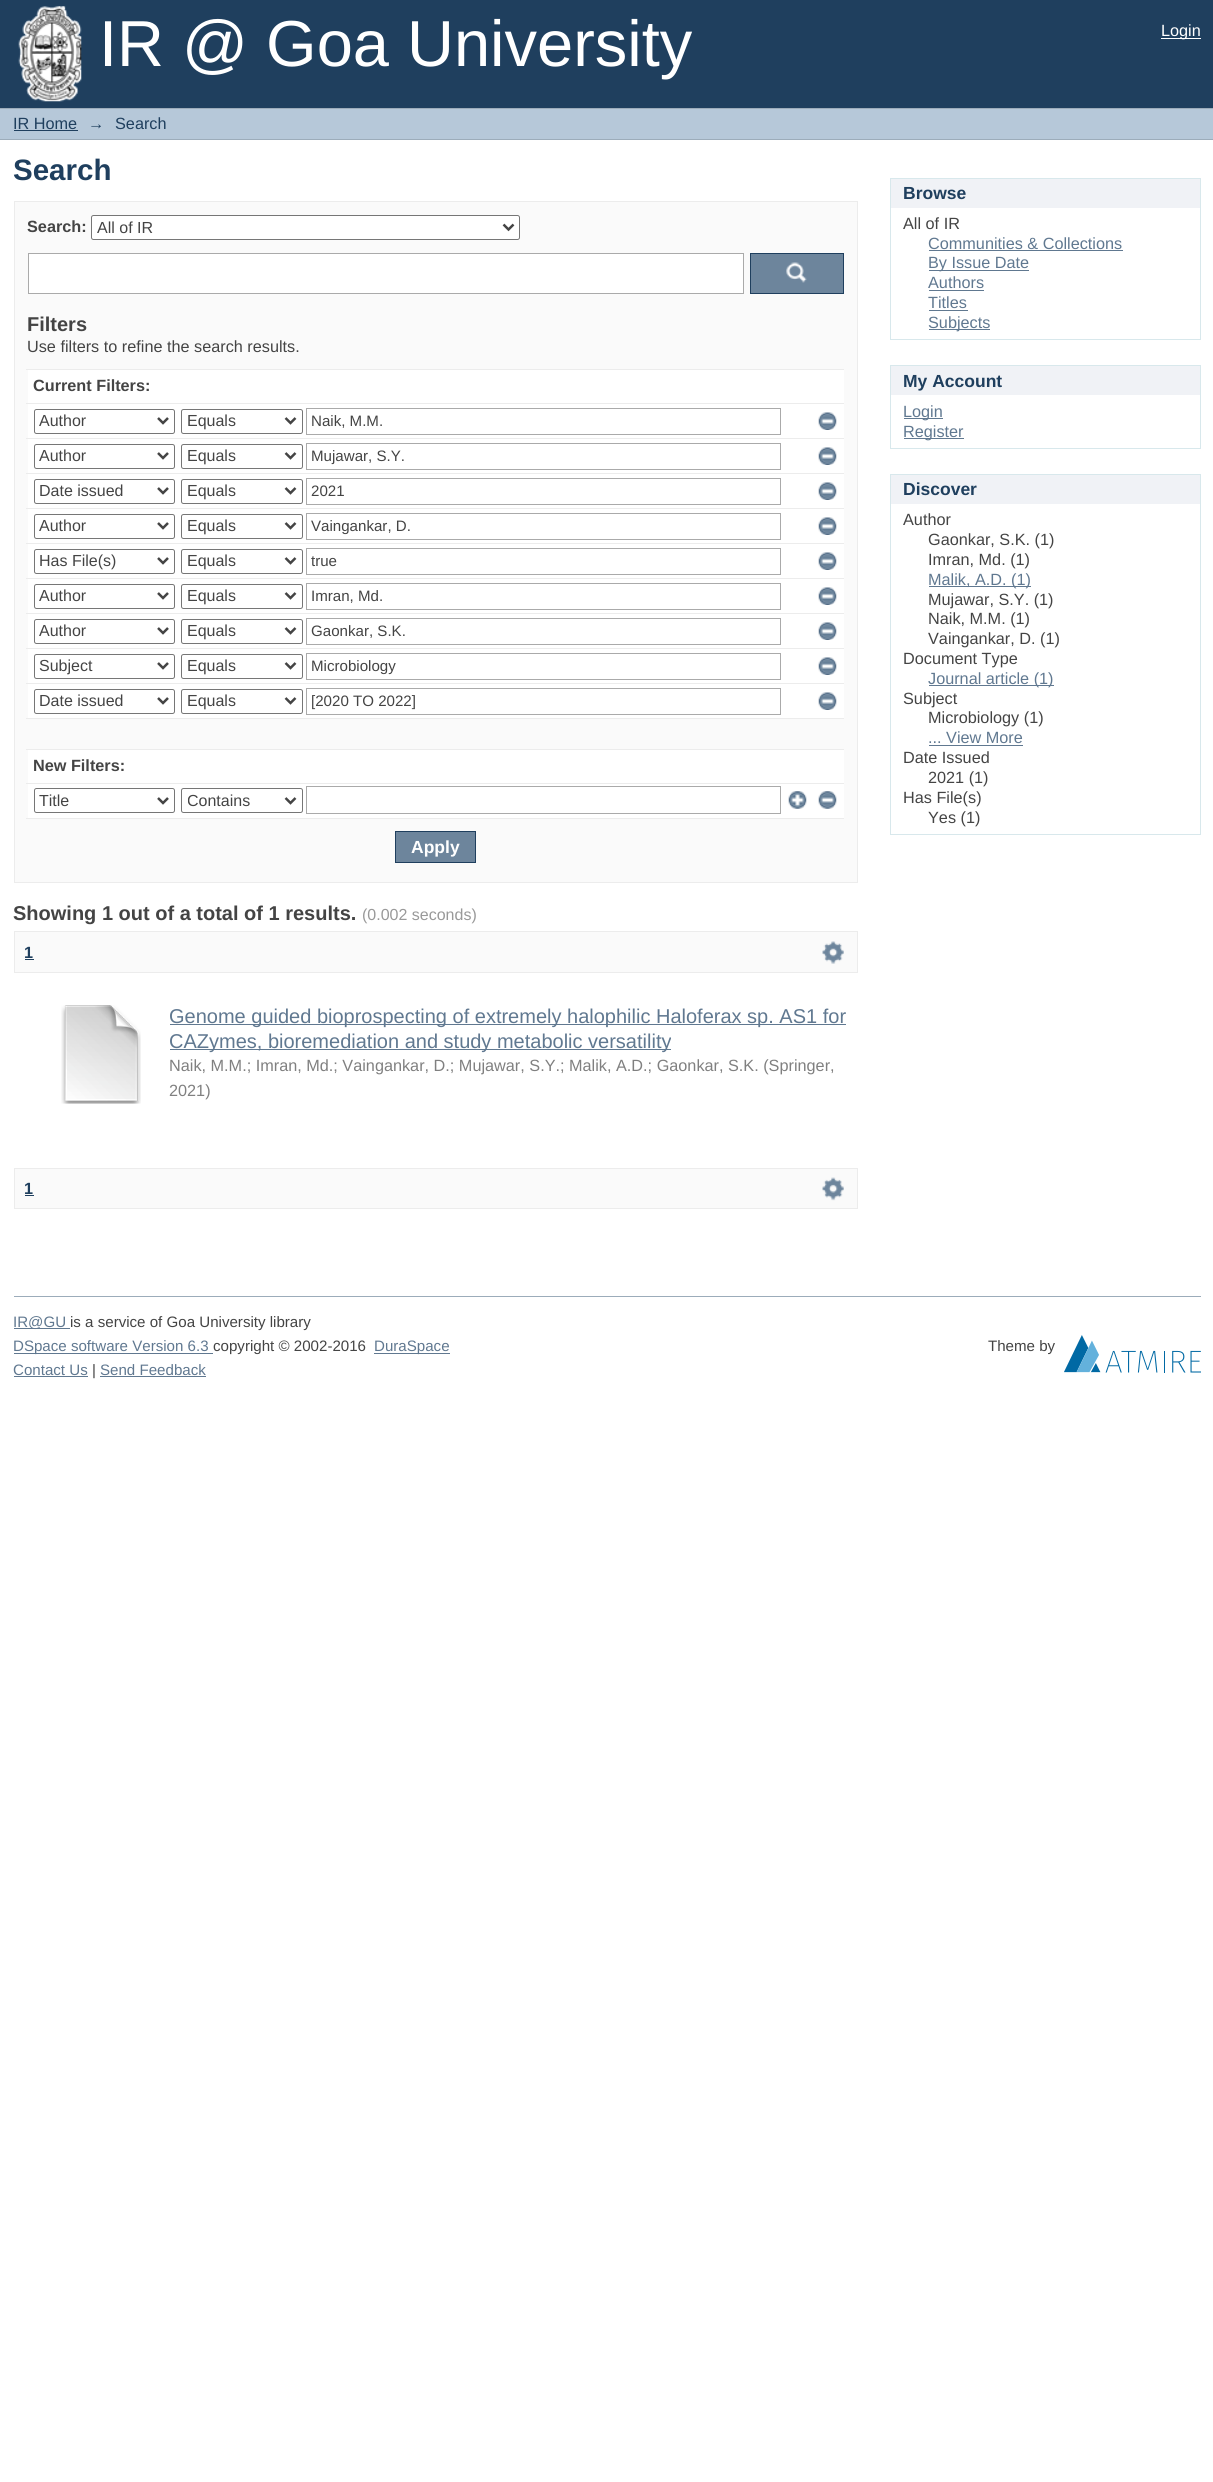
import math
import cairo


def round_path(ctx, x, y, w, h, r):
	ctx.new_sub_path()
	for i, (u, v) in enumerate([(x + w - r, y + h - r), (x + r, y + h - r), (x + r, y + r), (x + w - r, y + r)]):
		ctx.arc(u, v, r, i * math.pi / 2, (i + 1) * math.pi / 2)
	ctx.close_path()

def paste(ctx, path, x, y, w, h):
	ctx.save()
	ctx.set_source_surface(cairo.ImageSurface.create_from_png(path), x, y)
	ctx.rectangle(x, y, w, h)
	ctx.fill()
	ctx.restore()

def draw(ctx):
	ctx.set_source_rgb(1, 1, 1)
	ctx.paint()
	ctx.set_source_rgb(0.122, 0.247, 0.369)
	ctx.rectangle(0, 0, 1213, 108)
	ctx.fill()
	paste(ctx, 'media/1.png', 18, 6, 64, 96)
	ctx.select_font_face('Liberation Sans')
	ctx.set_font_size(65)
	ctx.set_source_rgb(1, 1, 1)
	ctx.move_to(99, 66)
	ctx.show_text('IR @ Goa University')
	ctx.rectangle(1161, 38, 40, 1)
	ctx.fill()
	ctx.set_font_size(16.25)
	ctx.move_to(1161, 36)
	ctx.show_text('Login')
	ctx.set_source_rgb(0.714, 0.784, 0.851)
	ctx.rectangle(0, 109, 1213, 30)
	ctx.fill()
	ctx.set_source_rgb(0.612, 0.675, 0.729)
	ctx.rectangle(0, 108, 1213, 1)
	ctx.rectangle(0, 139, 1213, 1)
	ctx.fill()
	ctx.set_source_rgb(0.122, 0.247, 0.369)
	ctx.move_to(13, 129)
	ctx.show_text('IR Home')
	ctx.rectangle(14, 130, 64, 1)
	ctx.fill()
	ctx.move_to(88, 129)
	ctx.show_text('→')
	ctx.move_to(115, 129)
	ctx.show_text('Search')
	ctx.select_font_face('Liberation Sans', cairo.FONT_SLANT_NORMAL, cairo.FONT_WEIGHT_BOLD)
	ctx.set_font_size(29.5)
	ctx.move_to(13, 180)
	ctx.show_text('Search')
	ctx.set_source_rgb(0.98, 0.98, 0.98)
	ctx.rectangle(14.5, 201.5, 843, 681)
	ctx.fill_preserve()
	ctx.set_source_rgb(0.922, 0.922, 0.922)
	ctx.set_line_width(1)
	ctx.stroke()
	ctx.set_font_size(16.25)
	ctx.set_source_rgb(0.267, 0.267, 0.267)
	ctx.move_to(27, 232)
	ctx.show_text('Search:')
	ctx.set_source_rgb(1, 1, 1)
	round_path(ctx, 91.5, 215.5, 428, 24, 2)
	ctx.fill_preserve()
	ctx.set_source_rgb(0.463, 0.463, 0.463)
	ctx.stroke()
	ctx.new_path()
	ctx.move_to(503.5, 224.5)
	ctx.line_to(508.5, 229.5)
	ctx.line_to(513.5, 224.5)
	ctx.set_source_rgb(0.267, 0.267, 0.267)
	ctx.set_line_width(2.5)
	ctx.stroke()
	ctx.select_font_face('Liberation Sans')
	ctx.set_font_size(16)
	ctx.move_to(97, 233)
	ctx.show_text('All of IR')
	ctx.set_source_rgb(1, 1, 1)
	ctx.rectangle(28.5, 253.5, 715, 40)
	ctx.fill_preserve()
	ctx.set_source_rgb(0.667, 0.667, 0.667)
	ctx.set_line_width(1)
	ctx.stroke()
	ctx.set_source_rgb(0.427, 0.522, 0.612)
	ctx.rectangle(751, 254, 92, 39)
	ctx.fill()
	paste(ctx, 'media/2.png', 786, 262, 21, 21)
	ctx.rectangle(750.5, 253.5, 93, 40)
	ctx.set_source_rgb(0.122, 0.247, 0.369)
	ctx.stroke()
	ctx.select_font_face('Liberation Sans', cairo.FONT_SLANT_NORMAL, cairo.FONT_WEIGHT_BOLD)
	ctx.set_font_size(20)
	ctx.set_source_rgb(0.267, 0.267, 0.267)
	ctx.move_to(27, 331)
	ctx.show_text('Filters')
	ctx.select_font_face('Liberation Sans')
	ctx.set_font_size(16.25)
	ctx.move_to(27, 352)
	ctx.show_text('Use filters to refine the search results.')
	ctx.set_source_rgb(1, 1, 1)
	ctx.rectangle(28, 370, 816, 448)
	ctx.fill()
	ctx.set_source_rgb(0.922, 0.922, 0.922)
	ctx.rectangle(26, 369, 818, 1)
	ctx.fill()
	ctx.select_font_face('Liberation Sans', cairo.FONT_SLANT_NORMAL, cairo.FONT_WEIGHT_BOLD)
	ctx.set_source_rgb(0.267, 0.267, 0.267)
	ctx.move_to(33, 391)
	ctx.show_text('Current Filters:')
	ctx.set_source_rgb(0.922, 0.922, 0.922)
	ctx.rectangle(26, 403, 818, 1)
	ctx.fill()
	round_path(ctx, 34.5, 409.5, 140, 24, 2)
	ctx.set_source_rgb(0.463, 0.463, 0.463)
	ctx.stroke()
	ctx.new_path()
	ctx.move_to(158, 418)
	ctx.line_to(163, 423)
	ctx.line_to(168, 418)
	ctx.set_source_rgb(0.267, 0.267, 0.267)
	ctx.set_line_width(2.5)
	ctx.stroke()
	ctx.select_font_face('Liberation Sans')
	ctx.set_font_size(16)
	ctx.move_to(39, 426)
	ctx.show_text('Author')
	round_path(ctx, 181.5, 409.5, 121, 24, 2)
	ctx.set_source_rgb(0.463, 0.463, 0.463)
	ctx.set_line_width(1)
	ctx.stroke()
	ctx.new_path()
	ctx.move_to(285.5, 418)
	ctx.line_to(290.5, 423)
	ctx.line_to(295.5, 418)
	ctx.set_source_rgb(0.267, 0.267, 0.267)
	ctx.set_line_width(2.5)
	ctx.stroke()
	ctx.move_to(187, 426)
	ctx.show_text('Equals')
	ctx.rectangle(306.5, 408.5, 474, 26)
	ctx.set_source_rgb(0.667, 0.667, 0.667)
	ctx.set_line_width(1)
	ctx.stroke()
	ctx.set_font_size(15.1)
	ctx.set_source_rgb(0.267, 0.267, 0.267)
	ctx.move_to(311, 426)
	ctx.show_text('Naik, M.M.')
	paste(ctx, 'media/3.png', 818, 412, 19, 18)
	ctx.set_source_rgb(0.922, 0.922, 0.922)
	ctx.rectangle(26, 438, 818, 1)
	ctx.fill()
	round_path(ctx, 34.5, 444.5, 140, 24, 2)
	ctx.set_source_rgb(0.463, 0.463, 0.463)
	ctx.stroke()
	ctx.new_path()
	ctx.move_to(158, 453)
	ctx.line_to(163, 458)
	ctx.line_to(168, 453)
	ctx.set_source_rgb(0.267, 0.267, 0.267)
	ctx.set_line_width(2.5)
	ctx.stroke()
	ctx.set_font_size(16)
	ctx.move_to(39, 461)
	ctx.show_text('Author')
	round_path(ctx, 181.5, 444.5, 121, 24, 2)
	ctx.set_source_rgb(0.463, 0.463, 0.463)
	ctx.set_line_width(1)
	ctx.stroke()
	ctx.new_path()
	ctx.move_to(285.5, 453)
	ctx.line_to(290.5, 458)
	ctx.line_to(295.5, 453)
	ctx.set_source_rgb(0.267, 0.267, 0.267)
	ctx.set_line_width(2.5)
	ctx.stroke()
	ctx.move_to(187, 461)
	ctx.show_text('Equals')
	ctx.rectangle(306.5, 443.5, 474, 26)
	ctx.set_source_rgb(0.667, 0.667, 0.667)
	ctx.set_line_width(1)
	ctx.stroke()
	ctx.set_font_size(15.1)
	ctx.set_source_rgb(0.267, 0.267, 0.267)
	ctx.move_to(311, 461)
	ctx.show_text('Mujawar, S.Y.')
	paste(ctx, 'media/3.png', 818, 447, 19, 18)
	ctx.set_source_rgb(0.922, 0.922, 0.922)
	ctx.rectangle(26, 473, 818, 1)
	ctx.fill()
	round_path(ctx, 34.5, 479.5, 140, 24, 2)
	ctx.set_source_rgb(0.463, 0.463, 0.463)
	ctx.stroke()
	ctx.new_path()
	ctx.move_to(158, 488)
	ctx.line_to(163, 493)
	ctx.line_to(168, 488)
	ctx.set_source_rgb(0.267, 0.267, 0.267)
	ctx.set_line_width(2.5)
	ctx.stroke()
	ctx.set_font_size(16)
	ctx.move_to(39, 496)
	ctx.show_text('Date issued')
	round_path(ctx, 181.5, 479.5, 121, 24, 2)
	ctx.set_source_rgb(0.463, 0.463, 0.463)
	ctx.set_line_width(1)
	ctx.stroke()
	ctx.new_path()
	ctx.move_to(285.5, 488)
	ctx.line_to(290.5, 493)
	ctx.line_to(295.5, 488)
	ctx.set_source_rgb(0.267, 0.267, 0.267)
	ctx.set_line_width(2.5)
	ctx.stroke()
	ctx.move_to(187, 496)
	ctx.show_text('Equals')
	ctx.rectangle(306.5, 478.5, 474, 26)
	ctx.set_source_rgb(0.667, 0.667, 0.667)
	ctx.set_line_width(1)
	ctx.stroke()
	ctx.set_font_size(15.1)
	ctx.set_source_rgb(0.267, 0.267, 0.267)
	ctx.move_to(311, 496)
	ctx.show_text('2021')
	paste(ctx, 'media/3.png', 818, 482, 19, 18)
	ctx.set_source_rgb(0.922, 0.922, 0.922)
	ctx.rectangle(26, 508, 818, 1)
	ctx.fill()
	round_path(ctx, 34.5, 514.5, 140, 24, 2)
	ctx.set_source_rgb(0.463, 0.463, 0.463)
	ctx.stroke()
	ctx.new_path()
	ctx.move_to(158, 523)
	ctx.line_to(163, 528)
	ctx.line_to(168, 523)
	ctx.set_source_rgb(0.267, 0.267, 0.267)
	ctx.set_line_width(2.5)
	ctx.stroke()
	ctx.set_font_size(16)
	ctx.move_to(39, 531)
	ctx.show_text('Author')
	round_path(ctx, 181.5, 514.5, 121, 24, 2)
	ctx.set_source_rgb(0.463, 0.463, 0.463)
	ctx.set_line_width(1)
	ctx.stroke()
	ctx.new_path()
	ctx.move_to(285.5, 523)
	ctx.line_to(290.5, 528)
	ctx.line_to(295.5, 523)
	ctx.set_source_rgb(0.267, 0.267, 0.267)
	ctx.set_line_width(2.5)
	ctx.stroke()
	ctx.move_to(187, 531)
	ctx.show_text('Equals')
	ctx.rectangle(306.5, 513.5, 474, 26)
	ctx.set_source_rgb(0.667, 0.667, 0.667)
	ctx.set_line_width(1)
	ctx.stroke()
	ctx.set_font_size(15.1)
	ctx.set_source_rgb(0.267, 0.267, 0.267)
	ctx.move_to(311, 531)
	ctx.show_text('Vaingankar, D.')
	paste(ctx, 'media/3.png', 818, 517, 19, 18)
	ctx.set_source_rgb(0.922, 0.922, 0.922)
	ctx.rectangle(26, 543, 818, 1)
	ctx.fill()
	round_path(ctx, 34.5, 549.5, 140, 24, 2)
	ctx.set_source_rgb(0.463, 0.463, 0.463)
	ctx.stroke()
	ctx.new_path()
	ctx.move_to(158, 558)
	ctx.line_to(163, 563)
	ctx.line_to(168, 558)
	ctx.set_source_rgb(0.267, 0.267, 0.267)
	ctx.set_line_width(2.5)
	ctx.stroke()
	ctx.set_font_size(16)
	ctx.move_to(39, 566)
	ctx.show_text('Has File(s)')
	round_path(ctx, 181.5, 549.5, 121, 24, 2)
	ctx.set_source_rgb(0.463, 0.463, 0.463)
	ctx.set_line_width(1)
	ctx.stroke()
	ctx.new_path()
	ctx.move_to(285.5, 558)
	ctx.line_to(290.5, 563)
	ctx.line_to(295.5, 558)
	ctx.set_source_rgb(0.267, 0.267, 0.267)
	ctx.set_line_width(2.5)
	ctx.stroke()
	ctx.move_to(187, 566)
	ctx.show_text('Equals')
	ctx.rectangle(306.5, 548.5, 474, 26)
	ctx.set_source_rgb(0.667, 0.667, 0.667)
	ctx.set_line_width(1)
	ctx.stroke()
	ctx.set_font_size(15.1)
	ctx.set_source_rgb(0.267, 0.267, 0.267)
	ctx.move_to(311, 566)
	ctx.show_text('true')
	paste(ctx, 'media/3.png', 818, 552, 19, 18)
	ctx.set_source_rgb(0.922, 0.922, 0.922)
	ctx.rectangle(26, 578, 818, 1)
	ctx.fill()
	round_path(ctx, 34.5, 584.5, 140, 24, 2)
	ctx.set_source_rgb(0.463, 0.463, 0.463)
	ctx.stroke()
	ctx.new_path()
	ctx.move_to(158, 593)
	ctx.line_to(163, 598)
	ctx.line_to(168, 593)
	ctx.set_source_rgb(0.267, 0.267, 0.267)
	ctx.set_line_width(2.5)
	ctx.stroke()
	ctx.set_font_size(16)
	ctx.move_to(39, 601)
	ctx.show_text('Author')
	round_path(ctx, 181.5, 584.5, 121, 24, 2)
	ctx.set_source_rgb(0.463, 0.463, 0.463)
	ctx.set_line_width(1)
	ctx.stroke()
	ctx.new_path()
	ctx.move_to(285.5, 593)
	ctx.line_to(290.5, 598)
	ctx.line_to(295.5, 593)
	ctx.set_source_rgb(0.267, 0.267, 0.267)
	ctx.set_line_width(2.5)
	ctx.stroke()
	ctx.move_to(187, 601)
	ctx.show_text('Equals')
	ctx.rectangle(306.5, 583.5, 474, 26)
	ctx.set_source_rgb(0.667, 0.667, 0.667)
	ctx.set_line_width(1)
	ctx.stroke()
	ctx.set_font_size(15.1)
	ctx.set_source_rgb(0.267, 0.267, 0.267)
	ctx.move_to(311, 601)
	ctx.show_text('Imran, Md.')
	paste(ctx, 'media/4.png', 818, 587, 19, 18)
	ctx.set_source_rgb(0.922, 0.922, 0.922)
	ctx.rectangle(26, 613, 818, 1)
	ctx.fill()
	round_path(ctx, 34.5, 619.5, 140, 24, 2)
	ctx.set_source_rgb(0.463, 0.463, 0.463)
	ctx.stroke()
	ctx.new_path()
	ctx.move_to(158, 628)
	ctx.line_to(163, 633)
	ctx.line_to(168, 628)
	ctx.set_source_rgb(0.267, 0.267, 0.267)
	ctx.set_line_width(2.5)
	ctx.stroke()
	ctx.set_font_size(16)
	ctx.move_to(39, 636)
	ctx.show_text('Author')
	round_path(ctx, 181.5, 619.5, 121, 24, 2)
	ctx.set_source_rgb(0.463, 0.463, 0.463)
	ctx.set_line_width(1)
	ctx.stroke()
	ctx.new_path()
	ctx.move_to(285.5, 628)
	ctx.line_to(290.5, 633)
	ctx.line_to(295.5, 628)
	ctx.set_source_rgb(0.267, 0.267, 0.267)
	ctx.set_line_width(2.5)
	ctx.stroke()
	ctx.move_to(187, 636)
	ctx.show_text('Equals')
	ctx.rectangle(306.5, 618.5, 474, 26)
	ctx.set_source_rgb(0.667, 0.667, 0.667)
	ctx.set_line_width(1)
	ctx.stroke()
	ctx.set_font_size(15.1)
	ctx.set_source_rgb(0.267, 0.267, 0.267)
	ctx.move_to(311, 636)
	ctx.show_text('Gaonkar, S.K.')
	paste(ctx, 'media/3.png', 818, 622, 19, 18)
	ctx.set_source_rgb(0.922, 0.922, 0.922)
	ctx.rectangle(26, 648, 818, 1)
	ctx.fill()
	round_path(ctx, 34.5, 654.5, 140, 24, 2)
	ctx.set_source_rgb(0.463, 0.463, 0.463)
	ctx.stroke()
	ctx.new_path()
	ctx.move_to(158, 663)
	ctx.line_to(163, 668)
	ctx.line_to(168, 663)
	ctx.set_source_rgb(0.267, 0.267, 0.267)
	ctx.set_line_width(2.5)
	ctx.stroke()
	ctx.set_font_size(16)
	ctx.move_to(39, 671)
	ctx.show_text('Subject')
	round_path(ctx, 181.5, 654.5, 121, 24, 2)
	ctx.set_source_rgb(0.463, 0.463, 0.463)
	ctx.set_line_width(1)
	ctx.stroke()
	ctx.new_path()
	ctx.move_to(285.5, 663)
	ctx.line_to(290.5, 668)
	ctx.line_to(295.5, 663)
	ctx.set_source_rgb(0.267, 0.267, 0.267)
	ctx.set_line_width(2.5)
	ctx.stroke()
	ctx.move_to(187, 671)
	ctx.show_text('Equals')
	ctx.rectangle(306.5, 653.5, 474, 26)
	ctx.set_source_rgb(0.667, 0.667, 0.667)
	ctx.set_line_width(1)
	ctx.stroke()
	ctx.set_font_size(15.1)
	ctx.set_source_rgb(0.267, 0.267, 0.267)
	ctx.move_to(311, 671)
	ctx.show_text('Microbiology')
	paste(ctx, 'media/3.png', 818, 657, 19, 18)
	ctx.set_source_rgb(0.922, 0.922, 0.922)
	ctx.rectangle(26, 683, 818, 1)
	ctx.fill()
	round_path(ctx, 34.5, 689.5, 140, 24, 2)
	ctx.set_source_rgb(0.463, 0.463, 0.463)
	ctx.stroke()
	ctx.new_path()
	ctx.move_to(158, 698)
	ctx.line_to(163, 703)
	ctx.line_to(168, 698)
	ctx.set_source_rgb(0.267, 0.267, 0.267)
	ctx.set_line_width(2.5)
	ctx.stroke()
	ctx.set_font_size(16)
	ctx.move_to(39, 706)
	ctx.show_text('Date issued')
	round_path(ctx, 181.5, 689.5, 121, 24, 2)
	ctx.set_source_rgb(0.463, 0.463, 0.463)
	ctx.set_line_width(1)
	ctx.stroke()
	ctx.new_path()
	ctx.move_to(285.5, 698)
	ctx.line_to(290.5, 703)
	ctx.line_to(295.5, 698)
	ctx.set_source_rgb(0.267, 0.267, 0.267)
	ctx.set_line_width(2.5)
	ctx.stroke()
	ctx.move_to(187, 706)
	ctx.show_text('Equals')
	ctx.rectangle(306.5, 688.5, 474, 26)
	ctx.set_source_rgb(0.667, 0.667, 0.667)
	ctx.set_line_width(1)
	ctx.stroke()
	ctx.set_font_size(15.1)
	ctx.set_source_rgb(0.267, 0.267, 0.267)
	ctx.move_to(311, 706)
	ctx.show_text('[2020 TO 2022]')
	paste(ctx, 'media/3.png', 818, 692, 19, 18)
	ctx.set_source_rgb(0.98, 0.98, 0.98)
	ctx.rectangle(28, 719, 816, 30)
	ctx.fill()
	ctx.set_source_rgb(0.922, 0.922, 0.922)
	ctx.rectangle(26, 718, 818, 1)
	ctx.rectangle(26, 749, 818, 1)
	ctx.fill()
	ctx.select_font_face('Liberation Sans', cairo.FONT_SLANT_NORMAL, cairo.FONT_WEIGHT_BOLD)
	ctx.set_font_size(16.25)
	ctx.set_source_rgb(0.267, 0.267, 0.267)
	ctx.move_to(33, 771)
	ctx.show_text('New Filters:')
	ctx.set_source_rgb(0.922, 0.922, 0.922)
	ctx.rectangle(26, 783, 818, 1)
	ctx.fill()
	round_path(ctx, 34.5, 788.5, 140, 24, 2)
	ctx.set_source_rgb(0.463, 0.463, 0.463)
	ctx.stroke()
	ctx.new_path()
	ctx.move_to(158, 798)
	ctx.line_to(163, 803)
	ctx.line_to(168, 798)
	ctx.set_source_rgb(0.267, 0.267, 0.267)
	ctx.set_line_width(2.5)
	ctx.stroke()
	ctx.select_font_face('Liberation Sans')
	ctx.set_font_size(16)
	ctx.move_to(39, 806)
	ctx.show_text('Title')
	round_path(ctx, 181.5, 788.5, 121, 24, 2)
	ctx.set_source_rgb(0.463, 0.463, 0.463)
	ctx.set_line_width(1)
	ctx.stroke()
	ctx.new_path()
	ctx.move_to(285.5, 798)
	ctx.line_to(290.5, 803)
	ctx.line_to(295.5, 798)
	ctx.set_source_rgb(0.267, 0.267, 0.267)
	ctx.set_line_width(2.5)
	ctx.stroke()
	ctx.save()
	ctx.rectangle(188, 790, 93, 21)
	ctx.clip()
	ctx.move_to(187, 806)
	ctx.show_text('Contains')
	ctx.restore()
	ctx.rectangle(306.5, 786.5, 474, 27)
	ctx.set_source_rgb(0.667, 0.667, 0.667)
	ctx.set_line_width(1)
	ctx.stroke()
	paste(ctx, 'media/5.png', 788, 791, 19, 18)
	paste(ctx, 'media/6.png', 818, 791, 19, 18)
	ctx.set_source_rgb(0.922, 0.922, 0.922)
	ctx.rectangle(26, 818, 818, 1)
	ctx.fill()
	ctx.set_source_rgb(0.427, 0.522, 0.612)
	ctx.rectangle(395.5, 831.5, 80, 31)
	ctx.fill_preserve()
	ctx.set_source_rgb(0.122, 0.247, 0.369)
	ctx.stroke()
	ctx.select_font_face('Liberation Sans', cairo.FONT_SLANT_NORMAL, cairo.FONT_WEIGHT_BOLD)
	ctx.set_font_size(17.5)
	ctx.set_source_rgb(1, 1, 1)
	ctx.move_to(411, 853)
	ctx.show_text('Apply')
	ctx.set_font_size(20)
	ctx.set_source_rgb(0.267, 0.267, 0.267)
	ctx.move_to(13, 920)
	ctx.show_text('Showing 1 out of a total of 1 results.')
	ctx.select_font_face('Liberation Sans')
	ctx.set_font_size(16)
	ctx.set_source_rgb(0.6, 0.6, 0.6)
	ctx.move_to(362, 920)
	ctx.show_text('(0.002 seconds)')
	ctx.set_source_rgb(0.98, 0.98, 0.98)
	ctx.rectangle(14.5, 931.5, 843, 41)
	ctx.fill_preserve()
	ctx.set_source_rgb(0.922, 0.922, 0.922)
	ctx.stroke()
	ctx.select_font_face('Liberation Sans', cairo.FONT_SLANT_NORMAL, cairo.FONT_WEIGHT_BOLD)
	ctx.set_font_size(16.25)
	ctx.set_source_rgb(0.122, 0.247, 0.369)
	ctx.move_to(24, 958)
	ctx.show_text('1')
	ctx.rectangle(25, 959, 9, 1)
	ctx.fill()
	paste(ctx, 'media/7.png', 822, 941, 22, 23)
	paste(ctx, 'media/8.png', 61, 1005, 80, 99)
	ctx.set_source_rgb(0.376, 0.471, 0.565)
	ctx.rectangle(170, 1024, 676, 1)
	ctx.fill()
	ctx.select_font_face('Liberation Sans')
	ctx.set_font_size(20)
	ctx.move_to(169, 1023)
	ctx.show_text('Genome guided bioprospecting of extremely halophilic Haloferax sp. AS1 for')
	ctx.rectangle(170, 1049, 501, 1)
	ctx.fill()
	ctx.move_to(169, 1048)
	ctx.show_text('CAZymes, bioremediation and study metabolic versatility')
	ctx.set_font_size(16.25)
	ctx.set_source_rgb(0.502, 0.502, 0.502)
	ctx.move_to(169, 1071)
	ctx.show_text('Naik, M.M.; Imran, Md.; Vaingankar, D.; Mujawar, S.Y.; Malik, A.D.; Gaonkar, S.K. (Springer,')
	ctx.move_to(169, 1096)
	ctx.show_text('2021)')
	ctx.set_source_rgb(0.98, 0.98, 0.98)
	ctx.rectangle(14.5, 1168.5, 843, 40)
	ctx.fill_preserve()
	ctx.set_source_rgb(0.922, 0.922, 0.922)
	ctx.stroke()
	ctx.select_font_face('Liberation Sans', cairo.FONT_SLANT_NORMAL, cairo.FONT_WEIGHT_BOLD)
	ctx.set_source_rgb(0.122, 0.247, 0.369)
	ctx.move_to(24, 1194)
	ctx.show_text('1')
	ctx.rectangle(25, 1195, 9, 1)
	ctx.fill()
	paste(ctx, 'media/9.png', 822, 1177, 22, 24)
	ctx.set_source_rgb(0.941, 0.949, 0.961)
	ctx.rectangle(891, 179, 309, 29)
	ctx.fill()
	ctx.set_source_rgb(0.847, 0.91, 0.922)
	ctx.rectangle(890, 178, 311, 1)
	ctx.rectangle(1200, 178, 1, 162)
	ctx.rectangle(890, 178, 1, 30)
	ctx.fill()
	ctx.set_font_size(17.5)
	ctx.set_source_rgb(0.122, 0.247, 0.369)
	ctx.move_to(903, 199)
	ctx.show_text('Browse')
	ctx.set_source_rgb(0.847, 0.91, 0.922)
	ctx.rectangle(890, 339, 311, 1)
	ctx.fill()
	ctx.rectangle(890, 208, 1, 132)
	ctx.fill()
	ctx.select_font_face('Liberation Sans')
	ctx.set_font_size(16.25)
	ctx.set_source_rgb(0.267, 0.267, 0.267)
	ctx.move_to(903, 229)
	ctx.show_text('All of IR')
	ctx.set_source_rgb(0.376, 0.471, 0.565)
	ctx.move_to(928, 249)
	ctx.show_text('Communities & Collections')
	ctx.rectangle(929, 250, 194, 1)
	ctx.fill()
	ctx.rectangle(929, 270, 100, 1)
	ctx.fill()
	ctx.move_to(928, 268)
	ctx.show_text('By Issue Date')
	ctx.move_to(928, 288)
	ctx.show_text('Authors')
	ctx.rectangle(929, 290, 55, 1)
	ctx.fill()
	ctx.move_to(928, 308)
	ctx.show_text('Titles')
	ctx.rectangle(929, 310, 39, 1)
	ctx.fill()
	ctx.rectangle(929, 329, 61, 1)
	ctx.fill()
	ctx.move_to(928, 328)
	ctx.show_text('Subjects')
	ctx.set_source_rgb(0.941, 0.949, 0.961)
	ctx.rectangle(891, 366, 309, 29)
	ctx.fill()
	ctx.set_source_rgb(0.847, 0.91, 0.922)
	ctx.rectangle(890, 365, 311, 1)
	ctx.rectangle(1200, 365, 1, 84)
	ctx.rectangle(890, 365, 1, 30)
	ctx.fill()
	ctx.select_font_face('Liberation Sans', cairo.FONT_SLANT_NORMAL, cairo.FONT_WEIGHT_BOLD)
	ctx.set_font_size(17.5)
	ctx.set_source_rgb(0.122, 0.247, 0.369)
	ctx.move_to(903, 387)
	ctx.show_text('My Account')
	ctx.set_source_rgb(0.847, 0.91, 0.922)
	ctx.rectangle(890, 448, 311, 1)
	ctx.rectangle(890, 395, 1, 54)
	ctx.fill()
	ctx.set_source_rgb(0.376, 0.471, 0.565)
	ctx.rectangle(904, 418, 39, 1)
	ctx.fill()
	ctx.select_font_face('Liberation Sans')
	ctx.set_font_size(16.25)
	ctx.move_to(903, 417)
	ctx.show_text('Login')
	ctx.rectangle(904, 438, 60, 1)
	ctx.fill()
	ctx.move_to(903, 437)
	ctx.show_text('Register')
	ctx.set_source_rgb(0.941, 0.949, 0.961)
	ctx.rectangle(891, 475, 309, 29)
	ctx.fill()
	ctx.set_source_rgb(0.847, 0.91, 0.922)
	ctx.rectangle(890, 474, 311, 1)
	ctx.rectangle(1200, 474, 1, 361)
	ctx.rectangle(890, 474, 1, 30)
	ctx.fill()
	ctx.select_font_face('Liberation Sans', cairo.FONT_SLANT_NORMAL, cairo.FONT_WEIGHT_BOLD)
	ctx.set_font_size(17.5)
	ctx.set_source_rgb(0.122, 0.247, 0.369)
	ctx.move_to(903, 495)
	ctx.show_text('Discover')
	ctx.set_source_rgb(0.847, 0.91, 0.922)
	ctx.rectangle(890, 834, 311, 1)
	ctx.fill()
	ctx.rectangle(890, 504, 1, 331)
	ctx.fill()
	ctx.select_font_face('Liberation Sans')
	ctx.set_font_size(16.25)
	ctx.set_source_rgb(0.267, 0.267, 0.267)
	for x, y, s in [
		(903, 525, 'Author'),
		(928, 545, 'Gaonkar, S.K. (1)'),
		(928, 565, 'Imran, Md. (1)'),
	]:
		ctx.move_to(x, y)
		ctx.show_text(s)
	ctx.set_source_rgb(0.376, 0.471, 0.565)
	ctx.rectangle(929, 586, 102, 1)
	ctx.fill()
	ctx.move_to(928, 585)
	ctx.show_text('Malik, A.D. (1)')
	ctx.set_source_rgb(0.267, 0.267, 0.267)
	for x, y, s in [
		(928, 605, 'Mujawar, S.Y. (1)'),
		(928, 624, 'Naik, M.M. (1)'),
		(928, 644, 'Vaingankar, D. (1)'),
		(903, 664, 'Document Type'),
	]:
		ctx.move_to(x, y)
		ctx.show_text(s)
	ctx.set_source_rgb(0.376, 0.471, 0.565)
	ctx.rectangle(929, 685, 125, 1)
	ctx.fill()
	ctx.move_to(928, 684)
	ctx.show_text('Journal article (1)')
	ctx.set_source_rgb(0.267, 0.267, 0.267)
	ctx.move_to(903, 704)
	ctx.show_text('Subject')
	ctx.move_to(928, 723)
	ctx.show_text('Microbiology (1)')
	ctx.set_source_rgb(0.376, 0.471, 0.565)
	ctx.move_to(928, 743)
	ctx.show_text('... View More')
	ctx.rectangle(929, 745, 94, 1)
	ctx.fill()
	ctx.set_source_rgb(0.267, 0.267, 0.267)
	for x, y, s in [
		(903, 763, 'Date Issued'),
		(928, 783, '2021 (1)'),
		(903, 803, 'Has File(s)'),
		(928, 823, 'Yes (1)'),
	]:
		ctx.move_to(x, y)
		ctx.show_text(s)
	ctx.set_source_rgb(0.612, 0.675, 0.729)
	ctx.rectangle(14, 1296, 1187, 1)
	ctx.fill()
	ctx.set_source_rgb(0.376, 0.471, 0.565)
	ctx.rectangle(14, 1328, 56, 1)
	ctx.fill()
	ctx.set_font_size(15.1)
	ctx.move_to(13, 1327)
	ctx.show_text('IR@GU')
	ctx.set_source_rgb(0.267, 0.267, 0.267)
	ctx.move_to(70, 1327)
	ctx.show_text('is a service of Goa University library')
	ctx.set_source_rgb(0.376, 0.471, 0.565)
	ctx.rectangle(14, 1353, 199, 1)
	ctx.fill()
	ctx.move_to(13, 1351)
	ctx.show_text('DSpace software Version 6.3')
	ctx.set_source_rgb(0.267, 0.267, 0.267)
	ctx.move_to(213, 1351)
	ctx.show_text('copyright © 2002-2016')
	ctx.set_source_rgb(0.376, 0.471, 0.565)
	ctx.rectangle(374, 1353, 76, 1)
	ctx.fill()
	ctx.move_to(374, 1351)
	ctx.show_text('DuraSpace')
	ctx.set_source_rgb(0.267, 0.267, 0.267)
	ctx.move_to(988, 1351)
	ctx.show_text('Theme by')
	paste(ctx, 'media/10.png', 1064, 1335, 137, 38)
	ctx.set_source_rgb(0.376, 0.471, 0.565)
	ctx.move_to(13, 1375)
	ctx.show_text('Contact Us')
	ctx.rectangle(14, 1376, 74, 1)
	ctx.fill()
	ctx.set_source_rgb(0.267, 0.267, 0.267)
	ctx.move_to(92, 1375)
	ctx.show_text('|')
	ctx.set_source_rgb(0.376, 0.471, 0.565)
	ctx.move_to(100, 1375)
	ctx.show_text('Send Feedback')
	ctx.rectangle(100, 1376, 106, 1)
	ctx.fill()


surface = cairo.ImageSurface(cairo.FORMAT_RGB24, 1213, 2482)
ctx = cairo.Context(surface)
options = cairo.FontOptions()
options.set_hint_metrics(cairo.HINT_METRICS_OFF)
options.set_hint_style(cairo.HINT_STYLE_NONE)
ctx.set_font_options(options)
ctx.set_miter_limit(4)
draw(ctx)
surface.write_to_png('image.png')
